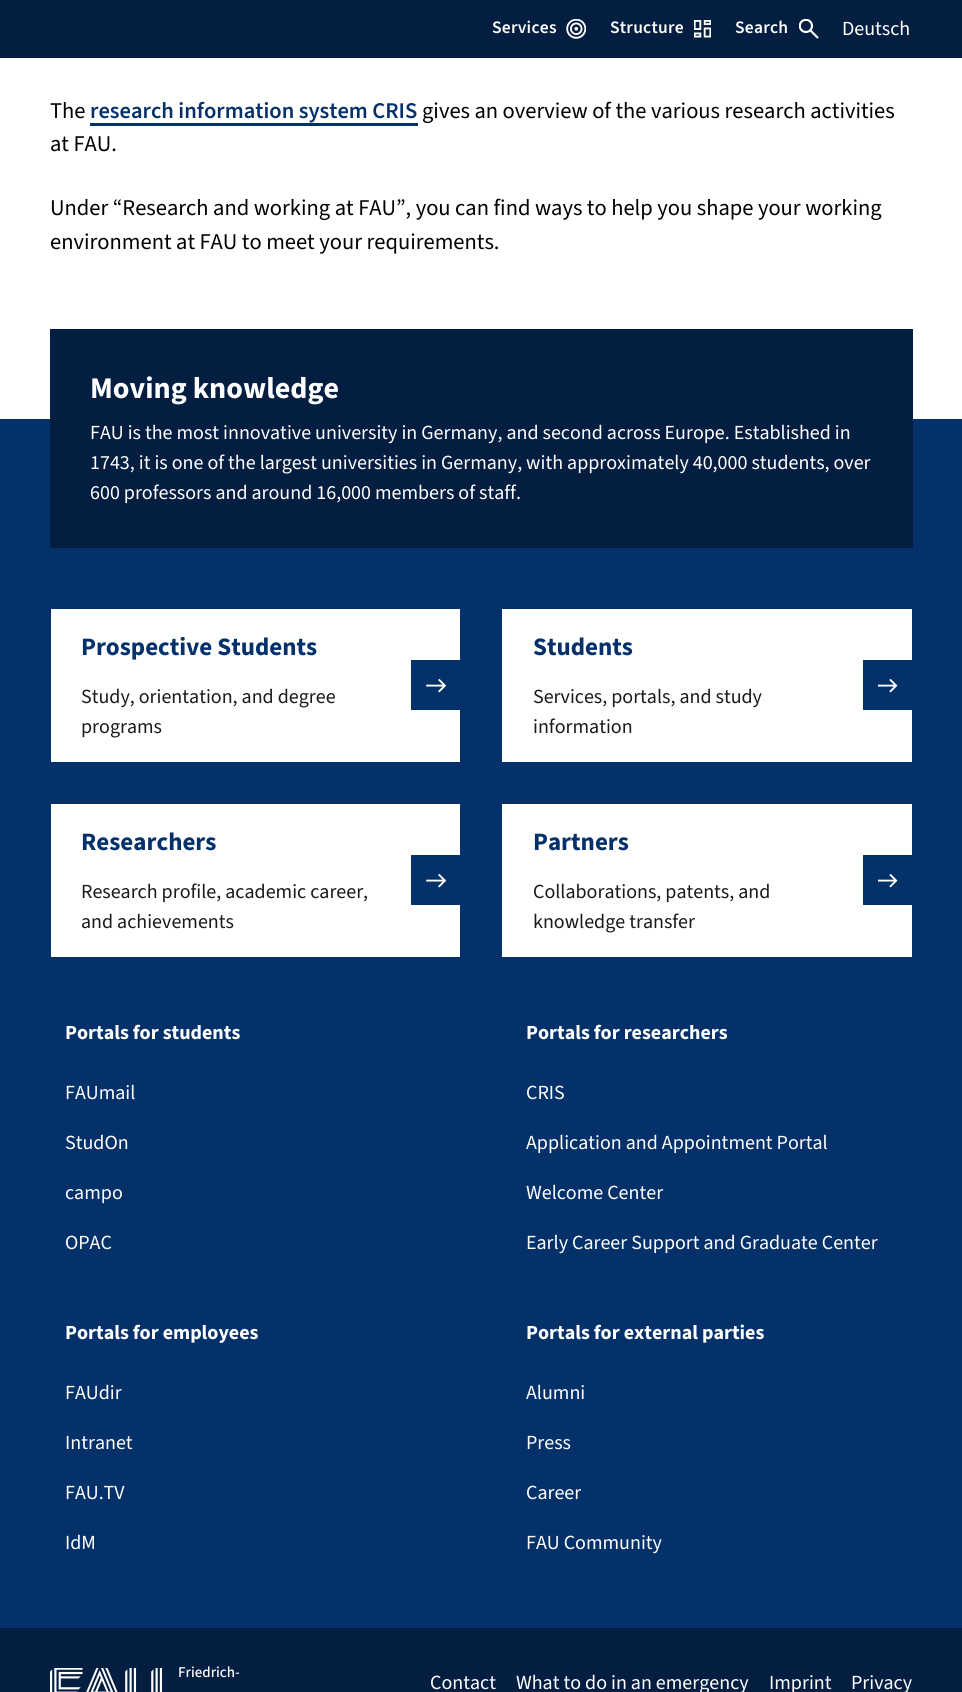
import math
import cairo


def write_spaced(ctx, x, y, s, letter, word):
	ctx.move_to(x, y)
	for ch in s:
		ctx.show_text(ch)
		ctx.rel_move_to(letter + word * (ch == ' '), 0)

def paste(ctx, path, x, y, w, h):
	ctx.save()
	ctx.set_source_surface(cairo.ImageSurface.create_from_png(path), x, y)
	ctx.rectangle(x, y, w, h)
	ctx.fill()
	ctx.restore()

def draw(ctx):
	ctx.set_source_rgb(1, 1, 1)
	ctx.paint()
	ctx.set_source_rgb(0.016, 0.118, 0.259)
	ctx.rectangle(0, 0, 962, 58)
	ctx.fill()
	ctx.select_font_face('Source Sans 3 SemiBold')
	ctx.set_font_size(17.5)
	ctx.set_source_rgb(1, 1, 1)
	write_spaced(ctx, 492, 33, 'Services', 0.25, 0)
	paste(ctx, 'media/1.png', 566, 19, 20, 20)
	write_spaced(ctx, 610, 33, 'Structure', 0.25, 0)
	paste(ctx, 'media/2.png', 694, 20, 17, 18)
	write_spaced(ctx, 735, 33, 'Search', 0.25, 0)
	paste(ctx, 'media/3.png', 799, 19, 20, 20)
	ctx.select_font_face('Source Sans 3')
	ctx.set_font_size(20)
	ctx.move_to(842, 35)
	ctx.show_text('Deutsch')
	ctx.set_font_size(22.5)
	ctx.set_source_rgb(0, 0, 0)
	ctx.move_to(50, 118)
	ctx.show_text('The')
	ctx.select_font_face('Source Sans 3 SemiBold')
	ctx.set_source_rgb(0.016, 0.192, 0.416)
	ctx.move_to(90, 118)
	ctx.show_text('research information system CRIS')
	ctx.rectangle(90, 123, 328, 3)
	ctx.fill()
	ctx.select_font_face('Source Sans 3')
	ctx.set_source_rgb(0, 0, 0)
	for x, y, s in [
		(422, 118, 'gives an overview of the various research activities'),
		(50, 151, 'at FAU.'),
		(50, 215, 'Under “Research and working at FAU”, you can find ways to help you shape your working'),
		(50, 249, 'environment at FAU to meet your requirements.'),
	]:
		ctx.move_to(x, y)
		ctx.show_text(s)
	ctx.set_source_rgb(0.016, 0.192, 0.416)
	ctx.rectangle(0, 419, 962, 1209)
	ctx.fill()
	ctx.set_source_rgb(0.016, 0.118, 0.259)
	ctx.rectangle(50, 329, 863, 219)
	ctx.fill()
	ctx.select_font_face('Source Sans 3', cairo.FONT_SLANT_NORMAL, cairo.FONT_WEIGHT_BOLD)
	ctx.set_font_size(30)
	ctx.set_source_rgb(1, 1, 1)
	ctx.move_to(90, 398)
	ctx.show_text('Moving knowledge')
	ctx.select_font_face('Source Sans 3')
	ctx.set_font_size(20)
	for x, y, s in [
		(90, 439, 'FAU is the most innovative university in Germany, and second across Europe. Established in'),
		(90, 469, '1743, it is one of the largest universities in Germany, with approximately 40,000 students, over'),
		(90, 499, '600 professors and around 16,000 members of staff.'),
	]:
		ctx.move_to(x, y)
		ctx.show_text(s)
	ctx.rectangle(51, 609, 409, 153)
	ctx.fill()
	ctx.select_font_face('Source Sans 3', cairo.FONT_SLANT_NORMAL, cairo.FONT_WEIGHT_BOLD)
	ctx.set_font_size(25)
	ctx.set_source_rgb(0.016, 0.192, 0.416)
	ctx.move_to(81, 655)
	ctx.show_text('Prospective Students')
	ctx.select_font_face('Source Sans 3')
	ctx.set_font_size(20)
	ctx.set_source_rgb(0.102, 0.102, 0.102)
	ctx.move_to(81, 703)
	ctx.show_text('Study, orientation, and degree')
	ctx.move_to(81, 733)
	ctx.show_text('programs')
	ctx.set_source_rgb(0.016, 0.192, 0.416)
	ctx.rectangle(411, 660, 49, 50)
	ctx.fill()
	paste(ctx, 'media/4.png', 426, 679, 20, 14)
	ctx.set_source_rgb(1, 1, 1)
	ctx.rectangle(502, 609, 410, 153)
	ctx.fill()
	ctx.select_font_face('Source Sans 3', cairo.FONT_SLANT_NORMAL, cairo.FONT_WEIGHT_BOLD)
	ctx.set_font_size(25)
	ctx.set_source_rgb(0.016, 0.192, 0.416)
	ctx.move_to(533, 655)
	ctx.show_text('Students')
	ctx.select_font_face('Source Sans 3')
	ctx.set_font_size(20)
	ctx.set_source_rgb(0.102, 0.102, 0.102)
	ctx.move_to(533, 703)
	ctx.show_text('Services, portals, and study')
	ctx.move_to(533, 733)
	ctx.show_text('information')
	ctx.set_source_rgb(0.016, 0.192, 0.416)
	ctx.rectangle(863, 660, 49, 50)
	ctx.fill()
	paste(ctx, 'media/5.png', 878, 679, 20, 14)
	ctx.set_source_rgb(1, 1, 1)
	ctx.rectangle(51, 804, 409, 153)
	ctx.fill()
	ctx.select_font_face('Source Sans 3', cairo.FONT_SLANT_NORMAL, cairo.FONT_WEIGHT_BOLD)
	ctx.set_font_size(25)
	ctx.set_source_rgb(0.016, 0.192, 0.416)
	ctx.move_to(81, 850)
	ctx.show_text('Researchers')
	ctx.select_font_face('Source Sans 3')
	ctx.set_font_size(20)
	ctx.set_source_rgb(0.102, 0.102, 0.102)
	ctx.move_to(81, 898)
	ctx.show_text('Research profile, academic career,')
	ctx.move_to(81, 928)
	ctx.show_text('and achievements')
	ctx.set_source_rgb(0.016, 0.192, 0.416)
	ctx.rectangle(411, 855, 49, 50)
	ctx.fill()
	paste(ctx, 'media/4.png', 426, 874, 20, 14)
	ctx.set_source_rgb(1, 1, 1)
	ctx.rectangle(502, 804, 410, 153)
	ctx.fill()
	ctx.select_font_face('Source Sans 3', cairo.FONT_SLANT_NORMAL, cairo.FONT_WEIGHT_BOLD)
	ctx.set_font_size(25)
	ctx.set_source_rgb(0.016, 0.192, 0.416)
	ctx.move_to(533, 850)
	ctx.show_text('Partners')
	ctx.select_font_face('Source Sans 3')
	ctx.set_font_size(20)
	ctx.set_source_rgb(0.102, 0.102, 0.102)
	ctx.move_to(533, 898)
	ctx.show_text('Collaborations, patents, and')
	ctx.move_to(533, 928)
	ctx.show_text('knowledge transfer')
	ctx.set_source_rgb(0.016, 0.192, 0.416)
	ctx.rectangle(863, 855, 49, 50)
	ctx.fill()
	paste(ctx, 'media/5.png', 878, 874, 20, 14)
	ctx.select_font_face('Source Sans 3', cairo.FONT_SLANT_NORMAL, cairo.FONT_WEIGHT_BOLD)
	ctx.set_source_rgb(1, 1, 1)
	ctx.move_to(65, 1039)
	ctx.show_text('Portals for students')
	ctx.select_font_face('Source Sans 3')
	for x, y, s in [
		(65, 1099, 'FAUmail'),
		(65, 1149, 'StudOn'),
		(65, 1199, 'campo'),
		(65, 1249, 'OPAC'),
	]:
		ctx.move_to(x, y)
		ctx.show_text(s)
	ctx.select_font_face('Source Sans 3', cairo.FONT_SLANT_NORMAL, cairo.FONT_WEIGHT_BOLD)
	ctx.move_to(526, 1039)
	ctx.show_text('Portals for researchers')
	ctx.select_font_face('Source Sans 3')
	for x, y, s in [
		(526, 1099, 'CRIS'),
		(526, 1149, 'Application and Appointment Portal'),
		(526, 1199, 'Welcome Center'),
		(526, 1249, 'Early Career Support and Graduate Center'),
	]:
		ctx.move_to(x, y)
		ctx.show_text(s)
	ctx.select_font_face('Source Sans 3', cairo.FONT_SLANT_NORMAL, cairo.FONT_WEIGHT_BOLD)
	ctx.move_to(65, 1339)
	ctx.show_text('Portals for employees')
	ctx.select_font_face('Source Sans 3')
	for x, y, s in [
		(65, 1399, 'FAUdir'),
		(65, 1449, 'Intranet'),
		(65, 1499, 'FAU.TV'),
		(65, 1549, 'IdM'),
	]:
		ctx.move_to(x, y)
		ctx.show_text(s)
	ctx.select_font_face('Source Sans 3', cairo.FONT_SLANT_NORMAL, cairo.FONT_WEIGHT_BOLD)
	ctx.move_to(526, 1339)
	ctx.show_text('Portals for external parties')
	ctx.select_font_face('Source Sans 3')
	for x, y, s in [
		(526, 1399, 'Alumni'),
		(526, 1449, 'Press'),
		(526, 1499, 'Career'),
		(526, 1549, 'FAU Community'),
	]:
		ctx.move_to(x, y)
		ctx.show_text(s)
	ctx.set_source_rgb(0.016, 0.118, 0.259)
	ctx.rectangle(0, 1628, 962, 64)
	ctx.fill()
	paste(ctx, 'media/6.png', 50, 1668, 112, 24)
	ctx.select_font_face('Source Sans 3 Medium')
	ctx.set_font_size(15)
	ctx.set_source_rgb(1, 1, 1)
	ctx.move_to(178, 1677)
	ctx.show_text('Friedrich-')
	ctx.select_font_face('Source Sans 3')
	ctx.set_font_size(20)
	for x, y, s in [
		(430, 1689, 'Contact'),
		(516, 1689, 'What to do in an emergency'),
		(769, 1689, 'Imprint'),
		(851, 1689, 'Privacy'),
	]:
		ctx.move_to(x, y)
		ctx.show_text(s)


surface = cairo.ImageSurface(cairo.FORMAT_RGB24, 962, 1692)
ctx = cairo.Context(surface)
options = cairo.FontOptions()
options.set_hint_metrics(cairo.HINT_METRICS_OFF)
options.set_hint_style(cairo.HINT_STYLE_NONE)
ctx.set_font_options(options)
ctx.set_miter_limit(4)
draw(ctx)
surface.write_to_png('image.png')
